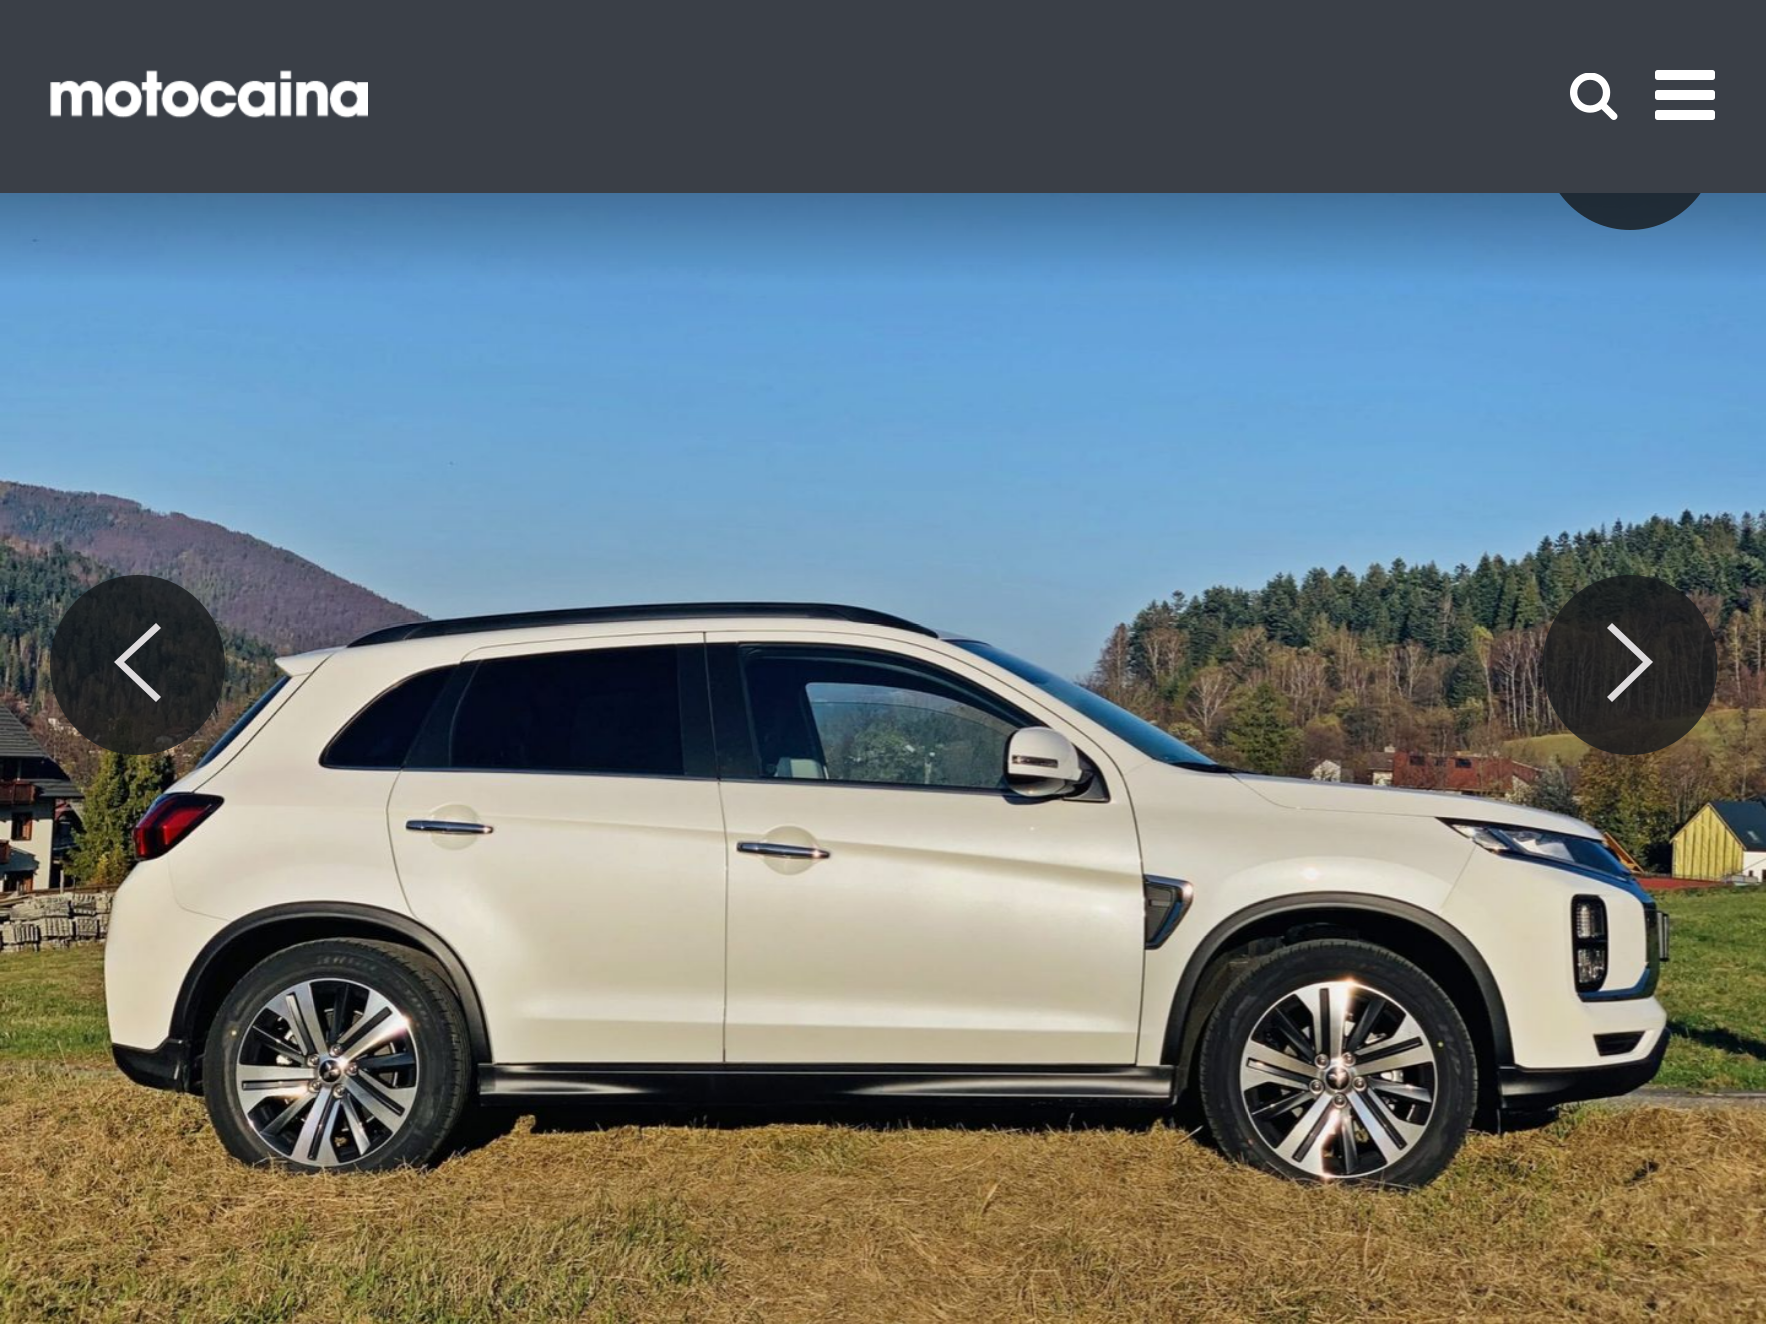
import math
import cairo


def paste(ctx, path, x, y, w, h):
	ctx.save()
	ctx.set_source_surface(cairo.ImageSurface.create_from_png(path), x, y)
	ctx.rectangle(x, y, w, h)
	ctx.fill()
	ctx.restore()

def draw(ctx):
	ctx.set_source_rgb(1, 1, 1)
	ctx.paint()
	paste(ctx, 'media/4.png', 0, 193, 1766, 1131)
	ctx.set_source_rgba(0.09, 0.098, 0.11, 0.8)
	ctx.new_path()
	ctx.move_to(1630, 50)
	ctx.curve_to(1678.5, 50, 1717.5, 90.5, 1717.5, 140)
	ctx.curve_to(1717.5, 189.5, 1678.5, 230, 1630, 230)
	ctx.curve_to(1581.5, 230, 1542.5, 189.5, 1542.5, 140)
	ctx.curve_to(1542.5, 90.5, 1581.5, 50, 1630, 50)
	ctx.close_path()
	ctx.fill()
	ctx.set_source_rgb(0.227, 0.247, 0.278)
	ctx.rectangle(0, 0, 1766, 193)
	ctx.fill()
	paste(ctx, 'media/1.png', 50, 70, 318, 48)
	paste(ctx, 'media/2.png', 1570, 73, 48, 47)
	paste(ctx, 'media/3.png', 1655, 70, 60, 50)
	ctx.set_source_rgba(0.09, 0.098, 0.11, 0.8)
	ctx.new_path()
	ctx.move_to(137.5, 575)
	ctx.curve_to(186, 575, 225, 615.5, 225, 665)
	ctx.curve_to(225, 714.5, 186, 755, 137.5, 755)
	ctx.curve_to(89, 755, 50, 714.5, 50, 665)
	ctx.curve_to(50, 615.5, 89, 575, 137.5, 575)
	ctx.close_path()
	ctx.fill()
	ctx.set_source_rgb(0.867, 0.855, 0.863)
	ctx.set_fill_rule(cairo.FILL_RULE_EVEN_ODD)
	ctx.new_path()
	ctx.move_to(161, 628)
	ctx.line_to(124, 662)
	ctx.line_to(161, 697)
	ctx.line_to(156, 702)
	ctx.line_to(114, 662)
	ctx.line_to(156, 623)
	ctx.close_path()
	ctx.fill()
	ctx.set_source_rgba(0.09, 0.098, 0.11, 0.8)
	ctx.new_path()
	ctx.move_to(1630, 575)
	ctx.curve_to(1678.5, 575, 1717.5, 615.5, 1717.5, 665)
	ctx.curve_to(1717.5, 714.5, 1678.5, 755, 1630, 755)
	ctx.curve_to(1581.5, 755, 1542.5, 714.5, 1542.5, 665)
	ctx.curve_to(1542.5, 615.5, 1581.5, 575, 1630, 575)
	ctx.close_path()
	ctx.fill()
	ctx.set_source_rgb(0.867, 0.855, 0.863)
	ctx.new_path()
	ctx.move_to(1607, 628)
	ctx.line_to(1612, 623)
	ctx.line_to(1653, 662)
	ctx.line_to(1612, 702)
	ctx.line_to(1607, 697)
	ctx.line_to(1643, 662)
	ctx.close_path()
	ctx.fill()


surface = cairo.ImageSurface(cairo.FORMAT_RGB24, 1766, 1324)
ctx = cairo.Context(surface)
options = cairo.FontOptions()
options.set_hint_metrics(cairo.HINT_METRICS_OFF)
options.set_hint_style(cairo.HINT_STYLE_NONE)
ctx.set_font_options(options)
ctx.set_miter_limit(4)
draw(ctx)
surface.write_to_png('image.png')
